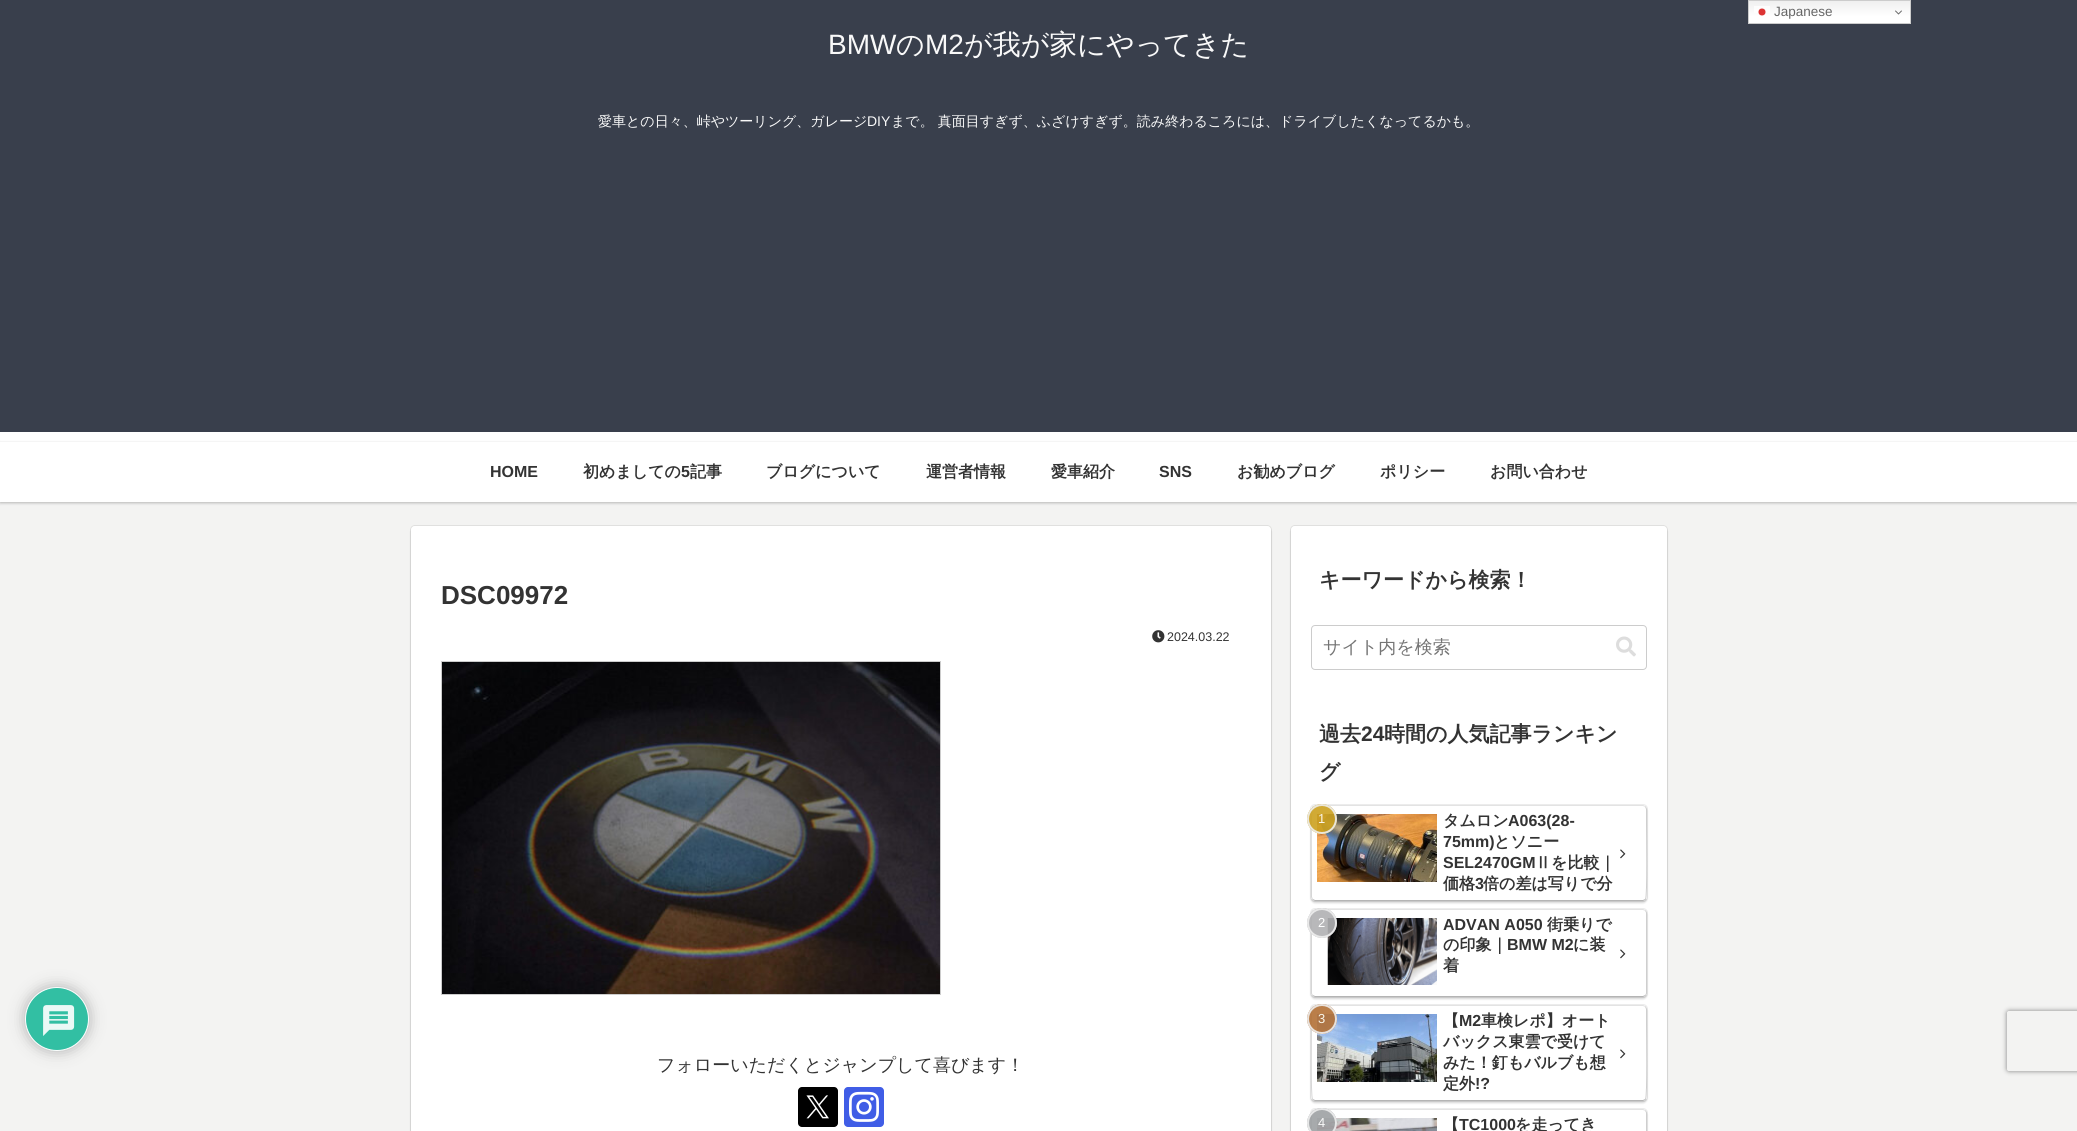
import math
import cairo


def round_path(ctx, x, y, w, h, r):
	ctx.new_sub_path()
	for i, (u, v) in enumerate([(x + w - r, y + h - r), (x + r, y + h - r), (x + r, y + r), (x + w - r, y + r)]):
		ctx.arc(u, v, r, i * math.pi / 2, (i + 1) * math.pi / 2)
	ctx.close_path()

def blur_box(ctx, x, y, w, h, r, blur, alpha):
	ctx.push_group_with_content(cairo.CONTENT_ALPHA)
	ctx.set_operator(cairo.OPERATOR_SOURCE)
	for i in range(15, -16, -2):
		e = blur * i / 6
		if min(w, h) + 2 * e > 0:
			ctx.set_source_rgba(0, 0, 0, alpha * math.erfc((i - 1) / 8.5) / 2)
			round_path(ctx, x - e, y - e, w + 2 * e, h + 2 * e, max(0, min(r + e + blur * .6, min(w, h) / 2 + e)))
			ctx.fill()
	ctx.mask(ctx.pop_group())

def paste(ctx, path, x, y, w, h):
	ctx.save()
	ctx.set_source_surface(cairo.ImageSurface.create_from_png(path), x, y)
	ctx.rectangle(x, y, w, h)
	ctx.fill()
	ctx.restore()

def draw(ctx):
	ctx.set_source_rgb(0.953, 0.953, 0.949)
	ctx.paint()
	ctx.set_source_rgb(0.224, 0.247, 0.298)
	ctx.rectangle(0, 0, 2077, 432)
	ctx.fill()
	gradient = cairo.LinearGradient(1830, 0, 1830, 24)
	gradient.add_color_stop_rgba(0, 0.937, 0.937, 0.937, 1)
	gradient.add_color_stop_rgba(0.7, 1, 1, 1, 1)
	ctx.set_source(gradient)
	ctx.rectangle(1749, 1, 161, 22)
	ctx.fill()
	gradient = cairo.LinearGradient(1830, 0, 1830, 24)
	gradient.add_color_stop_rgba(0, 0.988, 0.988, 0.988, 1)
	gradient.add_color_stop_rgba(0.7, 1, 1, 1, 1)
	ctx.set_source(gradient)
	ctx.rectangle(1754, 6, 16, 7)
	ctx.fill()
	ctx.rectangle(1748.5, 0.5, 162, 23)
	ctx.set_source_rgb(0.8, 0.8, 0.8)
	ctx.set_line_width(1)
	ctx.stroke()
	ctx.set_source_rgb(0.863, 0.2, 0.2)
	ctx.arc(1762, 12, 3.5, 0, 2 * math.pi)
	ctx.fill()
	ctx.select_font_face('Liberation Sans')
	ctx.set_font_size(13.5)
	ctx.set_source_rgb(0.4, 0.4, 0.4)
	ctx.move_to(1774, 16)
	ctx.show_text('Japanese')
	paste(ctx, 'media/1.png', 1895, 10, 7, 5)
	ctx.set_source_rgb(1, 1, 1)
	ctx.rectangle(0, 432, 2077, 70)
	ctx.fill()
	ctx.set_font_size(28)
	ctx.set_source_rgb(0.976, 0.976, 0.976)
	ctx.move_to(828, 54)
	ctx.show_text('BMW')
	ctx.select_font_face('WenQuanYi Zen Hei Medium')
	ctx.move_to(896, 54)
	ctx.show_text('の')
	ctx.select_font_face('Liberation Sans')
	ctx.move_to(925, 54)
	ctx.show_text('M2')
	ctx.select_font_face('WenQuanYi Zen Hei Medium')
	ctx.move_to(964, 54)
	ctx.show_text('が我が家にやってきた')
	ctx.set_font_size(14)
	ctx.move_to(598, 126)
	ctx.show_text('愛車との日々、峠やツーリング、ガレージ')
	ctx.select_font_face('Liberation Sans')
	ctx.move_to(867, 126)
	ctx.show_text('DIY')
	ctx.select_font_face('WenQuanYi Zen Hei Medium')
	ctx.move_to(891, 126)
	ctx.show_text('まで。 真面目すぎず、ふざけすぎず。読み終わるころには、ドライブしたくなってるかも。')
	ctx.save()
	ctx.set_fill_rule(cairo.FILL_RULE_EVEN_ODD)
	ctx.new_path()
	ctx.move_to(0, 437)
	ctx.line_to(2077, 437)
	ctx.line_to(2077, 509)
	ctx.line_to(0, 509)
	ctx.close_path()
	ctx.move_to(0, 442)
	ctx.line_to(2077, 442)
	ctx.line_to(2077, 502)
	ctx.line_to(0, 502)
	ctx.close_path()
	ctx.clip()
	ctx.set_source_rgb(0, 0, 0)
	blur_box(ctx, 0, 443, 2077, 60, 0, 1.5, 0.25)
	ctx.restore()
	ctx.select_font_face('Liberation Sans', cairo.FONT_SLANT_NORMAL, cairo.FONT_WEIGHT_BOLD)
	ctx.set_font_size(16)
	ctx.set_source_rgb(0.2, 0.2, 0.2)
	ctx.move_to(490, 477)
	ctx.show_text('HOME')
	ctx.select_font_face('WenQuanYi Zen Hei', cairo.FONT_SLANT_NORMAL, cairo.FONT_WEIGHT_BOLD)
	ctx.move_to(583, 477)
	ctx.show_text('初めましての')
	ctx.select_font_face('Liberation Sans', cairo.FONT_SLANT_NORMAL, cairo.FONT_WEIGHT_BOLD)
	ctx.move_to(681, 477)
	ctx.show_text('5')
	ctx.select_font_face('WenQuanYi Zen Hei', cairo.FONT_SLANT_NORMAL, cairo.FONT_WEIGHT_BOLD)
	for x, y, s in [
		(690, 477, '記事'),
		(766, 477, 'ブログについて'),
		(926, 477, '運営者情報'),
		(1051, 477, '愛車紹介'),
	]:
		ctx.move_to(x, y)
		ctx.show_text(s)
	ctx.select_font_face('Liberation Sans', cairo.FONT_SLANT_NORMAL, cairo.FONT_WEIGHT_BOLD)
	ctx.move_to(1159, 477)
	ctx.show_text('SNS')
	ctx.select_font_face('WenQuanYi Zen Hei', cairo.FONT_SLANT_NORMAL, cairo.FONT_WEIGHT_BOLD)
	for x, y, s in [
		(1237, 477, 'お勧めブログ'),
		(1380, 477, 'ポリシー'),
		(1490, 477, 'お問い合わせ'),
	]:
		ctx.move_to(x, y)
		ctx.show_text(s)
	ctx.set_source_rgb(0.694, 0.694, 0.694)
	blur_box(ctx, 25, 987, 64, 64, 32, 7.5, 1)
	ctx.set_source_rgb(0.196, 0.749, 0.639)
	ctx.arc(57, 1019, 31.5, 0, 2 * math.pi)
	ctx.fill_preserve()
	ctx.set_source_rgb(0.996, 0.996, 0.996)
	ctx.stroke()
	paste(ctx, 'media/2.png', 43, 1005, 32, 31)
	round_path(ctx, 410.5, 525.5, 861, 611, 4.5)
	ctx.set_source_rgb(0.878, 0.878, 0.875)
	ctx.stroke()
	ctx.set_source_rgb(0, 0, 0)
	blur_box(ctx, 411, 528, 860, 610, 4, 1, 0.16)
	ctx.set_source_rgb(1, 1, 1)
	round_path(ctx, 411, 526, 860, 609, 4)
	ctx.fill()
	ctx.select_font_face('Liberation Sans', cairo.FONT_SLANT_NORMAL, cairo.FONT_WEIGHT_BOLD)
	ctx.set_font_size(26)
	ctx.set_source_rgb(0.2, 0.2, 0.2)
	ctx.move_to(441, 604)
	ctx.show_text('DSC09972')
	paste(ctx, 'media/3.png', 1152, 630, 13, 13)
	ctx.select_font_face('Liberation Sans')
	ctx.set_font_size(12.5)
	ctx.move_to(1167, 641)
	ctx.show_text('2024.03.22')
	ctx.rectangle(441.5, 661.5, 499, 333)
	ctx.set_source_rgb(0.8, 0.8, 0.8)
	ctx.stroke()
	paste(ctx, 'media/4.png', 442, 662, 498, 332)
	ctx.select_font_face('WenQuanYi Zen Hei Medium')
	ctx.set_font_size(18)
	ctx.set_source_rgb(0.2, 0.2, 0.2)
	ctx.move_to(657, 1071)
	ctx.show_text('フォローいただくとジャンプして喜びます！')
	ctx.set_source_rgb(0, 0, 0)
	round_path(ctx, 798, 1087, 40, 40, 4)
	ctx.fill()
	paste(ctx, 'media/5.png', 806, 1095, 23, 24)
	ctx.set_source_rgb(0.251, 0.365, 0.902)
	round_path(ctx, 844, 1087, 40, 40, 4)
	ctx.fill()
	paste(ctx, 'media/6.png', 849, 1091, 30, 31)
	round_path(ctx, 1290.5, 525.5, 377, 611, 4.5)
	ctx.set_source_rgb(0.878, 0.878, 0.875)
	ctx.stroke()
	ctx.set_source_rgb(0, 0, 0)
	blur_box(ctx, 1291, 528, 376, 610, 4, 1, 0.16)
	ctx.set_source_rgb(1, 1, 1)
	round_path(ctx, 1291, 526, 376, 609, 4)
	ctx.fill()
	ctx.select_font_face('WenQuanYi Zen Hei', cairo.FONT_SLANT_NORMAL, cairo.FONT_WEIGHT_BOLD)
	ctx.set_font_size(21)
	ctx.set_source_rgb(0.2, 0.2, 0.2)
	ctx.move_to(1319, 587)
	ctx.show_text('キーワードから検索！')
	round_path(ctx, 1311.5, 625.5, 335, 44, 3.5)
	ctx.set_source_rgb(0.8, 0.8, 0.8)
	ctx.stroke()
	ctx.select_font_face('WenQuanYi Zen Hei Medium')
	ctx.set_font_size(18)
	ctx.set_source_rgb(0.459, 0.459, 0.459)
	ctx.move_to(1323, 653)
	ctx.show_text('サイト内を検索')
	paste(ctx, 'media/7.png', 1616, 636, 20, 21)
	ctx.select_font_face('WenQuanYi Zen Hei', cairo.FONT_SLANT_NORMAL, cairo.FONT_WEIGHT_BOLD)
	ctx.set_font_size(21)
	ctx.set_source_rgb(0.2, 0.2, 0.2)
	ctx.move_to(1319, 741)
	ctx.show_text('過去')
	ctx.select_font_face('Liberation Sans', cairo.FONT_SLANT_NORMAL, cairo.FONT_WEIGHT_BOLD)
	ctx.move_to(1361, 741)
	ctx.show_text('24')
	ctx.select_font_face('WenQuanYi Zen Hei', cairo.FONT_SLANT_NORMAL, cairo.FONT_WEIGHT_BOLD)
	ctx.move_to(1384, 741)
	ctx.show_text('時間の人気記事ランキン')
	ctx.move_to(1319, 779)
	ctx.show_text('グ')
	round_path(ctx, 1310.5, 804.5, 337, 97, 4.5)
	ctx.set_source_rgb(0.922, 0.922, 0.922)
	ctx.stroke()
	ctx.save()
	ctx.set_fill_rule(cairo.FILL_RULE_EVEN_ODD)
	ctx.new_path()
	ctx.move_to(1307, 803)
	ctx.line_to(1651, 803)
	ctx.line_to(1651, 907)
	ctx.line_to(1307, 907)
	ctx.close_path()
	ctx.move_to(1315, 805)
	ctx.line_to(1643, 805)
	ctx.curve_to(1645, 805, 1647, 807, 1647, 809)
	ctx.line_to(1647, 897)
	ctx.curve_to(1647, 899, 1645, 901, 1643, 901)
	ctx.line_to(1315, 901)
	ctx.curve_to(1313, 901, 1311, 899, 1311, 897)
	ctx.line_to(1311, 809)
	ctx.curve_to(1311, 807, 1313, 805, 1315, 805)
	ctx.close_path()
	ctx.clip()
	ctx.set_source_rgb(0, 0, 0)
	blur_box(ctx, 1311, 807, 336, 96, 4, 1, 0.16)
	ctx.restore()
	ctx.new_path()
	ctx.move_to(1312.5, 806.5)
	ctx.line_to(1315, 805.5)
	ctx.line_to(1643, 805.5)
	ctx.line_to(1645.5, 806.5)
	ctx.set_source_rgb(0.89, 0.89, 0.89)
	ctx.stroke()
	ctx.new_path()
	ctx.move_to(1645.5, 806.5)
	ctx.line_to(1646.5, 809)
	ctx.line_to(1646.5, 823.5)
	ctx.curve_to(1646.5, 832, 1647.5, 897, 1645.5, 899)
	ctx.line_to(1645.5, 899.5)
	ctx.set_source_rgb(0.808, 0.808, 0.808)
	ctx.stroke()
	ctx.new_path()
	ctx.move_to(1645.5, 899.5)
	ctx.line_to(1643, 900.5)
	ctx.line_to(1315, 900.5)
	ctx.line_to(1312.5, 899.5)
	ctx.set_source_rgb(0.706, 0.706, 0.706)
	ctx.stroke()
	ctx.new_path()
	ctx.move_to(1312.5, 899.5)
	ctx.line_to(1311.5, 897)
	ctx.line_to(1311.5, 882.5)
	ctx.curve_to(1311.5, 874, 1310.5, 809, 1312.5, 807)
	ctx.line_to(1312.5, 806.5)
	ctx.set_source_rgb(0.839, 0.839, 0.839)
	ctx.stroke()
	paste(ctx, 'media/8.png', 1317, 814, 120, 68)
	ctx.set_source_rgba(0.8, 0.631, 0.122, 0.9)
	ctx.arc(1322, 819, 15, 0, 2 * math.pi)
	ctx.fill()
	ctx.arc(1322, 819, 14, 0, 2 * math.pi)
	ctx.set_source_rgba(0.933, 0.933, 0.933, 0.9)
	ctx.set_line_width(2)
	ctx.stroke()
	ctx.select_font_face('Liberation Sans')
	ctx.set_font_size(13)
	ctx.set_source_rgb(0.98, 0.961, 0.914)
	ctx.move_to(1318, 823)
	ctx.show_text('1')
	ctx.select_font_face('WenQuanYi Zen Hei', cairo.FONT_SLANT_NORMAL, cairo.FONT_WEIGHT_BOLD)
	ctx.set_font_size(16)
	ctx.set_source_rgb(0.2, 0.2, 0.2)
	ctx.move_to(1443, 826)
	ctx.show_text('タムロン')
	ctx.select_font_face('Liberation Sans', cairo.FONT_SLANT_NORMAL, cairo.FONT_WEIGHT_BOLD)
	ctx.move_to(1508, 826)
	ctx.show_text('A063(28-')
	ctx.move_to(1443, 847)
	ctx.show_text('75mm)')
	ctx.select_font_face('WenQuanYi Zen Hei', cairo.FONT_SLANT_NORMAL, cairo.FONT_WEIGHT_BOLD)
	ctx.move_to(1494, 847)
	ctx.show_text('とソニー')
	ctx.select_font_face('Liberation Sans', cairo.FONT_SLANT_NORMAL, cairo.FONT_WEIGHT_BOLD)
	ctx.move_to(1443, 868)
	ctx.show_text('SEL2470GM')
	ctx.select_font_face('WenQuanYi Zen Hei', cairo.FONT_SLANT_NORMAL, cairo.FONT_WEIGHT_BOLD)
	ctx.move_to(1535, 868)
	ctx.show_text('Ⅱを比較｜')
	ctx.move_to(1443, 889)
	ctx.show_text('価格')
	ctx.select_font_face('Liberation Sans', cairo.FONT_SLANT_NORMAL, cairo.FONT_WEIGHT_BOLD)
	ctx.move_to(1475, 889)
	ctx.show_text('3')
	ctx.select_font_face('WenQuanYi Zen Hei', cairo.FONT_SLANT_NORMAL, cairo.FONT_WEIGHT_BOLD)
	ctx.move_to(1483, 889)
	ctx.show_text('倍の差は写りで分')
	paste(ctx, 'media/9.png', 1620, 849, 6, 10)
	round_path(ctx, 1310.5, 908.5, 337, 89, 4.5)
	ctx.set_source_rgb(0.922, 0.922, 0.922)
	ctx.set_line_width(1)
	ctx.stroke()
	ctx.save()
	ctx.set_fill_rule(cairo.FILL_RULE_EVEN_ODD)
	ctx.new_path()
	ctx.move_to(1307, 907)
	ctx.line_to(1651, 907)
	ctx.line_to(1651, 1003)
	ctx.line_to(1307, 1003)
	ctx.close_path()
	ctx.move_to(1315, 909)
	ctx.line_to(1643, 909)
	ctx.curve_to(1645, 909, 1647, 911, 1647, 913)
	ctx.line_to(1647, 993)
	ctx.curve_to(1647, 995, 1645, 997, 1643, 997)
	ctx.line_to(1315, 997)
	ctx.curve_to(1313, 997, 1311, 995, 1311, 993)
	ctx.line_to(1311, 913)
	ctx.curve_to(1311, 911, 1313, 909, 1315, 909)
	ctx.close_path()
	ctx.clip()
	ctx.set_source_rgb(0, 0, 0)
	blur_box(ctx, 1311, 911, 336, 88, 4, 1, 0.16)
	ctx.restore()
	ctx.new_path()
	ctx.move_to(1312.5, 910.5)
	ctx.line_to(1315, 909.5)
	ctx.line_to(1643, 909.5)
	ctx.line_to(1645.5, 910.5)
	ctx.set_source_rgb(0.89, 0.89, 0.89)
	ctx.stroke()
	ctx.new_path()
	ctx.move_to(1645.5, 910.5)
	ctx.line_to(1646.5, 912.5)
	ctx.line_to(1646.5, 993.5)
	ctx.line_to(1645.5, 995.5)
	ctx.set_source_rgb(0.808, 0.808, 0.808)
	ctx.stroke()
	ctx.new_path()
	ctx.move_to(1645.5, 995.5)
	ctx.line_to(1643, 996.5)
	ctx.line_to(1315, 996.5)
	ctx.line_to(1312.5, 995.5)
	ctx.set_source_rgb(0.706, 0.706, 0.706)
	ctx.stroke()
	ctx.new_path()
	ctx.move_to(1312.5, 995.5)
	ctx.line_to(1311.5, 993.5)
	ctx.line_to(1311.5, 912.5)
	ctx.line_to(1312.5, 910.5)
	ctx.set_source_rgb(0.839, 0.839, 0.839)
	ctx.stroke()
	paste(ctx, 'media/10.png', 1327, 918, 110, 67)
	ctx.set_source_rgba(0.694, 0.694, 0.702, 0.9)
	ctx.arc(1322, 923, 15, 0, 2 * math.pi)
	ctx.fill()
	ctx.arc(1322, 923, 14, 0, 2 * math.pi)
	ctx.set_source_rgba(0.933, 0.933, 0.933, 0.9)
	ctx.set_line_width(2)
	ctx.stroke()
	ctx.select_font_face('Liberation Sans')
	ctx.set_font_size(13)
	ctx.set_source_rgb(1, 1, 1)
	ctx.move_to(1318, 927)
	ctx.show_text('2')
	ctx.select_font_face('Liberation Sans', cairo.FONT_SLANT_NORMAL, cairo.FONT_WEIGHT_BOLD)
	ctx.set_font_size(16)
	ctx.set_source_rgb(0.2, 0.2, 0.2)
	ctx.move_to(1443, 930)
	ctx.show_text('ADVAN A050')
	ctx.select_font_face('WenQuanYi Zen Hei', cairo.FONT_SLANT_NORMAL, cairo.FONT_WEIGHT_BOLD)
	ctx.move_to(1547, 930)
	ctx.show_text('街乗りで')
	ctx.move_to(1443, 950)
	ctx.show_text('の印象｜')
	ctx.select_font_face('Liberation Sans', cairo.FONT_SLANT_NORMAL, cairo.FONT_WEIGHT_BOLD)
	ctx.move_to(1507, 950)
	ctx.show_text('BMW M2')
	ctx.select_font_face('WenQuanYi Zen Hei', cairo.FONT_SLANT_NORMAL, cairo.FONT_WEIGHT_BOLD)
	ctx.move_to(1573, 950)
	ctx.show_text('に装')
	ctx.move_to(1443, 971)
	ctx.show_text('着')
	paste(ctx, 'media/9.png', 1620, 949, 6, 10)
	round_path(ctx, 1310.5, 1004.5, 337, 97, 4.5)
	ctx.set_source_rgb(0.922, 0.922, 0.922)
	ctx.set_line_width(1)
	ctx.stroke()
	ctx.save()
	ctx.set_fill_rule(cairo.FILL_RULE_EVEN_ODD)
	ctx.new_path()
	ctx.move_to(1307, 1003)
	ctx.line_to(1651, 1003)
	ctx.line_to(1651, 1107)
	ctx.line_to(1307, 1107)
	ctx.close_path()
	ctx.move_to(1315, 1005)
	ctx.line_to(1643, 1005)
	ctx.curve_to(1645, 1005, 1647, 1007, 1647, 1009)
	ctx.line_to(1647, 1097)
	ctx.curve_to(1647, 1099, 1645, 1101, 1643, 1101)
	ctx.line_to(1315, 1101)
	ctx.curve_to(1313, 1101, 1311, 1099, 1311, 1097)
	ctx.line_to(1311, 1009)
	ctx.curve_to(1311, 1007, 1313, 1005, 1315, 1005)
	ctx.close_path()
	ctx.clip()
	ctx.set_source_rgb(0, 0, 0)
	blur_box(ctx, 1311, 1007, 336, 96, 4, 1, 0.16)
	ctx.restore()
	ctx.new_path()
	ctx.move_to(1312.5, 1006.5)
	ctx.line_to(1315, 1005.5)
	ctx.line_to(1643, 1005.5)
	ctx.line_to(1645.5, 1006.5)
	ctx.set_source_rgb(0.89, 0.89, 0.89)
	ctx.stroke()
	ctx.new_path()
	ctx.move_to(1645.5, 1006.5)
	ctx.line_to(1646.5, 1009)
	ctx.line_to(1646.5, 1023.5)
	ctx.curve_to(1646.5, 1032, 1647.5, 1097, 1645.5, 1099)
	ctx.line_to(1645.5, 1099.5)
	ctx.set_source_rgb(0.808, 0.808, 0.808)
	ctx.stroke()
	ctx.new_path()
	ctx.move_to(1645.5, 1099.5)
	ctx.line_to(1643, 1100.5)
	ctx.line_to(1315, 1100.5)
	ctx.line_to(1312.5, 1099.5)
	ctx.set_source_rgb(0.706, 0.706, 0.706)
	ctx.stroke()
	ctx.new_path()
	ctx.move_to(1312.5, 1099.5)
	ctx.line_to(1312.5, 1099)
	ctx.curve_to(1310.5, 1097, 1311.5, 1032, 1311.5, 1023.5)
	ctx.line_to(1311.5, 1009)
	ctx.line_to(1312.5, 1006.5)
	ctx.set_source_rgb(0.839, 0.839, 0.839)
	ctx.stroke()
	paste(ctx, 'media/11.png', 1317, 1014, 120, 68)
	ctx.set_source_rgba(0.702, 0.439, 0.212, 0.9)
	ctx.arc(1322, 1019, 15, 0, 2 * math.pi)
	ctx.fill()
	ctx.arc(1322, 1019, 14, 0, 2 * math.pi)
	ctx.set_source_rgba(0.933, 0.933, 0.933, 0.9)
	ctx.set_line_width(2)
	ctx.stroke()
	ctx.select_font_face('Liberation Sans')
	ctx.set_font_size(13)
	ctx.set_source_rgb(0.98, 0.961, 0.914)
	ctx.move_to(1318, 1023)
	ctx.show_text('3')
	ctx.select_font_face('WenQuanYi Zen Hei', cairo.FONT_SLANT_NORMAL, cairo.FONT_WEIGHT_BOLD)
	ctx.set_font_size(16)
	ctx.set_source_rgb(0.2, 0.2, 0.2)
	ctx.move_to(1443, 1026)
	ctx.show_text('【')
	ctx.select_font_face('Liberation Sans', cairo.FONT_SLANT_NORMAL, cairo.FONT_WEIGHT_BOLD)
	ctx.move_to(1459, 1026)
	ctx.show_text('M2')
	ctx.select_font_face('WenQuanYi Zen Hei', cairo.FONT_SLANT_NORMAL, cairo.FONT_WEIGHT_BOLD)
	for x, y, s in [
		(1481, 1026, '車検レポ】オート'),
		(1443, 1047, 'バックス東雲で受けて'),
		(1443, 1068, 'みた！釘もバルブも想'),
		(1443, 1089, '定外'),
	]:
		ctx.move_to(x, y)
		ctx.show_text(s)
	ctx.select_font_face('Liberation Sans', cairo.FONT_SLANT_NORMAL, cairo.FONT_WEIGHT_BOLD)
	ctx.move_to(1475, 1089)
	ctx.show_text('!?')
	paste(ctx, 'media/9.png', 1620, 1049, 6, 10)
	round_path(ctx, 1310.5, 1108.5, 337, 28, 4.5)
	ctx.set_source_rgb(0.922, 0.922, 0.922)
	ctx.set_line_width(1)
	ctx.stroke()
	ctx.save()
	ctx.set_fill_rule(cairo.FILL_RULE_EVEN_ODD)
	ctx.new_path()
	ctx.move_to(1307, 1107)
	ctx.line_to(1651, 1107)
	ctx.line_to(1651, 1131)
	ctx.line_to(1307, 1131)
	ctx.close_path()
	ctx.move_to(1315, 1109)
	ctx.line_to(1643, 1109)
	ctx.curve_to(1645, 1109, 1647, 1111, 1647, 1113)
	ctx.line_to(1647, 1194)
	ctx.curve_to(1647, 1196, 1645, 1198, 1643, 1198)
	ctx.line_to(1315, 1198)
	ctx.curve_to(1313, 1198, 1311, 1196, 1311, 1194)
	ctx.line_to(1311, 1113)
	ctx.curve_to(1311, 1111, 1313, 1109, 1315, 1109)
	ctx.close_path()
	ctx.clip()
	ctx.set_source_rgb(0, 0, 0)
	blur_box(ctx, 1311, 1111, 336, 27, 4, 1, 0.16)
	ctx.restore()
	ctx.new_path()
	ctx.move_to(1312.5, 1110.5)
	ctx.line_to(1315, 1109.5)
	ctx.line_to(1643, 1109.5)
	ctx.line_to(1645.5, 1110.5)
	ctx.set_source_rgb(0.89, 0.89, 0.89)
	ctx.stroke()
	ctx.new_path()
	ctx.move_to(1645.5, 1110.5)
	ctx.line_to(1646.5, 1112.5)
	ctx.line_to(1646.5, 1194.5)
	ctx.line_to(1645.5, 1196.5)
	ctx.set_source_rgb(0.808, 0.808, 0.808)
	ctx.stroke()
	ctx.new_path()
	ctx.move_to(1312.5, 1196.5)
	ctx.line_to(1311.5, 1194.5)
	ctx.line_to(1311.5, 1112.5)
	ctx.line_to(1312.5, 1110.5)
	ctx.set_source_rgb(0.839, 0.839, 0.839)
	ctx.stroke()
	paste(ctx, 'media/12.png', 1317, 1118, 120, 13)
	ctx.set_source_rgba(0.62, 0.631, 0.639, 0.9)
	ctx.arc(1322, 1123, 15, 0, 2 * math.pi)
	ctx.fill()
	ctx.arc(1322, 1123, 14, 0, 2 * math.pi)
	ctx.set_source_rgba(0.933, 0.933, 0.933, 0.9)
	ctx.set_line_width(2)
	ctx.stroke()
	ctx.select_font_face('Liberation Sans')
	ctx.set_font_size(13)
	ctx.set_source_rgb(0.976, 0.976, 0.976)
	ctx.move_to(1318, 1127)
	ctx.show_text('4')
	ctx.select_font_face('WenQuanYi Zen Hei', cairo.FONT_SLANT_NORMAL, cairo.FONT_WEIGHT_BOLD)
	ctx.set_font_size(16)
	ctx.set_source_rgb(0.2, 0.2, 0.2)
	ctx.move_to(1443, 1130)
	ctx.show_text('【')
	ctx.select_font_face('Liberation Sans', cairo.FONT_SLANT_NORMAL, cairo.FONT_WEIGHT_BOLD)
	ctx.move_to(1459, 1130)
	ctx.show_text('TC1000')
	ctx.select_font_face('WenQuanYi Zen Hei', cairo.FONT_SLANT_NORMAL, cairo.FONT_WEIGHT_BOLD)
	ctx.move_to(1515, 1130)
	ctx.show_text('を走ってき')
	ctx.save()
	ctx.set_fill_rule(cairo.FILL_RULE_EVEN_ODD)
	ctx.new_path()
	ctx.move_to(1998, 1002)
	ctx.line_to(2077, 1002)
	ctx.line_to(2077, 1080)
	ctx.line_to(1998, 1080)
	ctx.close_path()
	ctx.move_to(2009, 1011)
	ctx.line_to(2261, 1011)
	ctx.curve_to(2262, 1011, 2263, 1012, 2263, 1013)
	ctx.line_to(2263, 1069)
	ctx.curve_to(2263, 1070, 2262, 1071, 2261, 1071)
	ctx.line_to(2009, 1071)
	ctx.curve_to(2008, 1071, 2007, 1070, 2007, 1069)
	ctx.line_to(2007, 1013)
	ctx.curve_to(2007, 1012, 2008, 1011, 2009, 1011)
	ctx.close_path()
	ctx.clip()
	ctx.set_source_rgb(0.502, 0.502, 0.502)
	blur_box(ctx, 2007, 1011, 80, 60, 2, 2.5, 1)
	ctx.restore()


surface = cairo.ImageSurface(cairo.FORMAT_RGB24, 2077, 1131)
ctx = cairo.Context(surface)
options = cairo.FontOptions()
options.set_hint_metrics(cairo.HINT_METRICS_OFF)
options.set_hint_style(cairo.HINT_STYLE_NONE)
ctx.set_font_options(options)
ctx.set_miter_limit(4)
draw(ctx)
surface.write_to_png('image.png')
